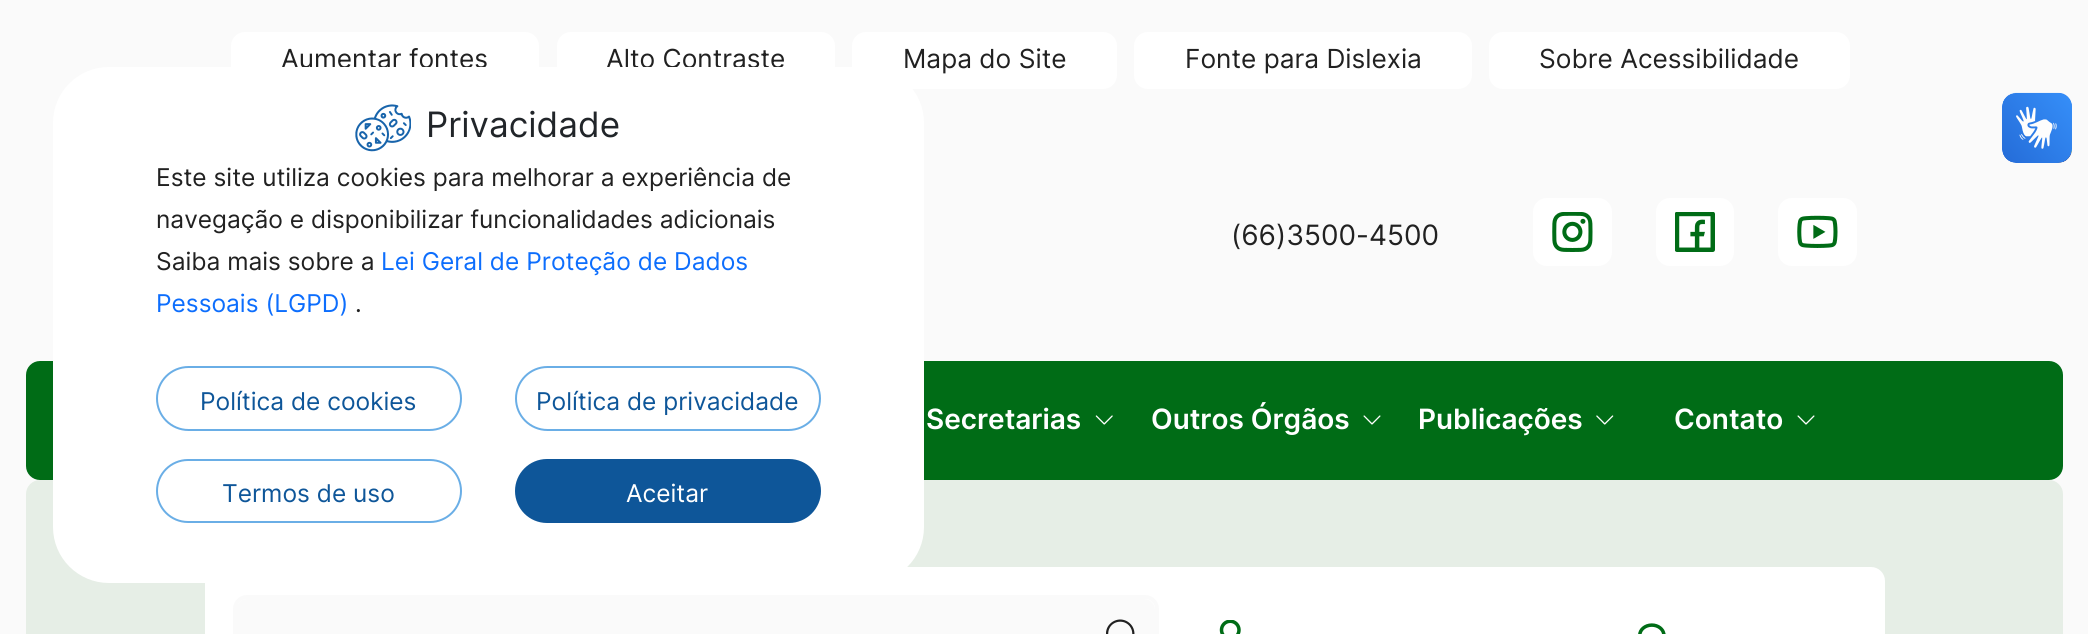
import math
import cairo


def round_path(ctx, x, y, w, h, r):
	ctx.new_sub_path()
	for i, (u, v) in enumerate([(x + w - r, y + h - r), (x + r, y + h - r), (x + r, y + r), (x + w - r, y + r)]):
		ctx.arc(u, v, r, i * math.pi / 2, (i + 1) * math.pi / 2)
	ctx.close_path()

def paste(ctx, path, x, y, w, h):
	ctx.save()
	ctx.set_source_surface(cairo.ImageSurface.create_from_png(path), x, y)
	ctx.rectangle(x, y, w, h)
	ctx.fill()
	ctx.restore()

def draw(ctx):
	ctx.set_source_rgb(0.98, 0.98, 0.98)
	ctx.paint()
	ctx.set_source_rgb(1, 1, 1)
	round_path(ctx, 231, 32, 308, 57, 14)
	ctx.fill()
	ctx.select_font_face('Inter')
	ctx.set_font_size(26.25)
	ctx.set_source_rgb(0.129, 0.129, 0.129)
	ctx.move_to(281, 68)
	ctx.show_text('Aumentar fontes')
	ctx.set_source_rgb(1, 1, 1)
	round_path(ctx, 557, 32, 278, 57, 14)
	ctx.fill()
	ctx.set_source_rgb(0.129, 0.129, 0.129)
	ctx.move_to(606, 68)
	ctx.show_text('Alto Contraste')
	ctx.set_source_rgb(1, 1, 1)
	round_path(ctx, 852, 32, 265, 57, 14)
	ctx.fill()
	ctx.set_source_rgb(0.129, 0.129, 0.129)
	ctx.move_to(903, 68)
	ctx.show_text('Mapa do Site')
	ctx.set_source_rgb(1, 1, 1)
	round_path(ctx, 1134, 32, 338, 57, 14)
	ctx.fill()
	ctx.set_source_rgb(0.129, 0.129, 0.129)
	ctx.move_to(1185, 68)
	ctx.show_text('Fonte para Dislexia')
	ctx.set_source_rgb(1, 1, 1)
	round_path(ctx, 1489, 32, 361, 57, 14)
	ctx.fill()
	ctx.set_source_rgb(0.129, 0.129, 0.129)
	ctx.move_to(1539, 68)
	ctx.show_text('Sobre Acessibilidade')
	ctx.set_font_size(28)
	ctx.move_to(1231, 245)
	ctx.show_text('(66)3500-4500')
	ctx.set_source_rgb(1, 1, 1)
	round_path(ctx, 1533, 198, 79, 68, 14)
	ctx.fill()
	paste(ctx, 'media/1.png', 1552, 212, 41, 40)
	round_path(ctx, 1656, 198, 78, 68, 14)
	ctx.fill()
	paste(ctx, 'media/2.png', 1675, 212, 40, 40)
	round_path(ctx, 1778, 198, 79, 68, 14)
	ctx.fill()
	paste(ctx, 'media/3.png', 1797, 215, 41, 33)
	ctx.set_source_rgb(0, 0.424, 0.086)
	round_path(ctx, 26, 361, 2037, 119, 14)
	ctx.fill()
	ctx.select_font_face('Inter SemiBold')
	ctx.set_source_rgb(1, 1, 1)
	ctx.move_to(926, 429)
	ctx.show_text('Secretarias')
	paste(ctx, 'media/4.png', 1095, 415, 18, 10)
	ctx.move_to(1151, 429)
	ctx.show_text('Outros Órgãos')
	paste(ctx, 'media/5.png', 1363, 415, 18, 10)
	ctx.move_to(1418, 429)
	ctx.show_text('Publicações')
	paste(ctx, 'media/6.png', 1596, 415, 18, 10)
	ctx.move_to(1674, 429)
	ctx.show_text('Contato')
	paste(ctx, 'media/5.png', 1797, 415, 18, 10)
	paste(ctx, 'media/7.png', 2002, 92, 70, 71)
	paste(ctx, 'media/8.png', 2002, 93, 70, 70)
	ctx.set_source_rgb(0.902, 0.933, 0.902)
	round_path(ctx, 26, 480, 2037, 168, 14)
	ctx.fill()
	ctx.set_source_rgb(1, 1, 1)
	round_path(ctx, 205, 567, 1680, 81, 14)
	ctx.fill()
	round_path(ctx, 53, 67, 871, 516, 56)
	ctx.fill()
	paste(ctx, 'media/9.png', 355, 104, 56, 48)
	ctx.select_font_face('Inter')
	ctx.set_font_size(35)
	ctx.set_source_rgb(0.129, 0.145, 0.161)
	ctx.move_to(426, 137)
	ctx.show_text('Privacidade')
	ctx.set_font_size(24.5)
	ctx.set_source_rgb(0.129, 0.129, 0.129)
	for x, y, s in [
		(156, 186, 'Este site utiliza cookies para melhorar a experiência de'),
		(156, 228, 'navegação e disponibilizar funcionalidades adicionais'),
		(156, 270, 'Saiba mais sobre a'),
	]:
		ctx.move_to(x, y)
		ctx.show_text(s)
	ctx.set_source_rgb(0.051, 0.431, 0.992)
	ctx.move_to(381, 270)
	ctx.show_text('Lei Geral de Proteção de Dados')
	ctx.move_to(156, 312)
	ctx.show_text('Pessoais (LGPD)')
	ctx.set_source_rgb(0.129, 0.129, 0.129)
	ctx.move_to(355, 312)
	ctx.show_text('.')
	round_path(ctx, 157, 367, 304, 63, 31.5)
	ctx.set_source_rgb(0.416, 0.682, 0.902)
	ctx.stroke()
	ctx.set_source_rgb(0.055, 0.337, 0.6)
	ctx.move_to(200, 410)
	ctx.show_text('Política de cookies')
	round_path(ctx, 516, 367, 304, 63, 31.5)
	ctx.set_source_rgb(0.416, 0.682, 0.902)
	ctx.stroke()
	ctx.set_source_rgb(0.055, 0.337, 0.6)
	ctx.move_to(536, 410)
	ctx.show_text('Política de privacidade')
	round_path(ctx, 157, 460, 304, 62, 31)
	ctx.set_source_rgb(0.416, 0.682, 0.902)
	ctx.stroke()
	ctx.set_source_rgb(0.055, 0.337, 0.6)
	ctx.move_to(222, 502)
	ctx.show_text('Termos de uso')
	round_path(ctx, 516, 460, 304, 62, 31)
	ctx.fill_preserve()
	ctx.stroke()
	ctx.set_source_rgb(1, 1, 1)
	ctx.move_to(626, 502)
	ctx.show_text('Aceitar')
	ctx.set_source_rgb(0.98, 0.98, 0.98)
	round_path(ctx, 236, 599, 919, 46, 11)
	ctx.fill()
	round_path(ctx, 235, 597, 922, 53, 12)
	ctx.set_line_width(4)
	ctx.stroke()
	paste(ctx, 'media/10.png', 1106, 619, 29, 15)
	paste(ctx, 'media/11.png', 1219, 620, 22, 14)
	paste(ctx, 'media/12.png', 1638, 623, 29, 11)


surface = cairo.ImageSurface(cairo.FORMAT_RGB24, 2088, 634)
ctx = cairo.Context(surface)
options = cairo.FontOptions()
options.set_hint_metrics(cairo.HINT_METRICS_OFF)
options.set_hint_style(cairo.HINT_STYLE_NONE)
ctx.set_font_options(options)
ctx.set_miter_limit(4)
draw(ctx)
surface.write_to_png('image.png')
